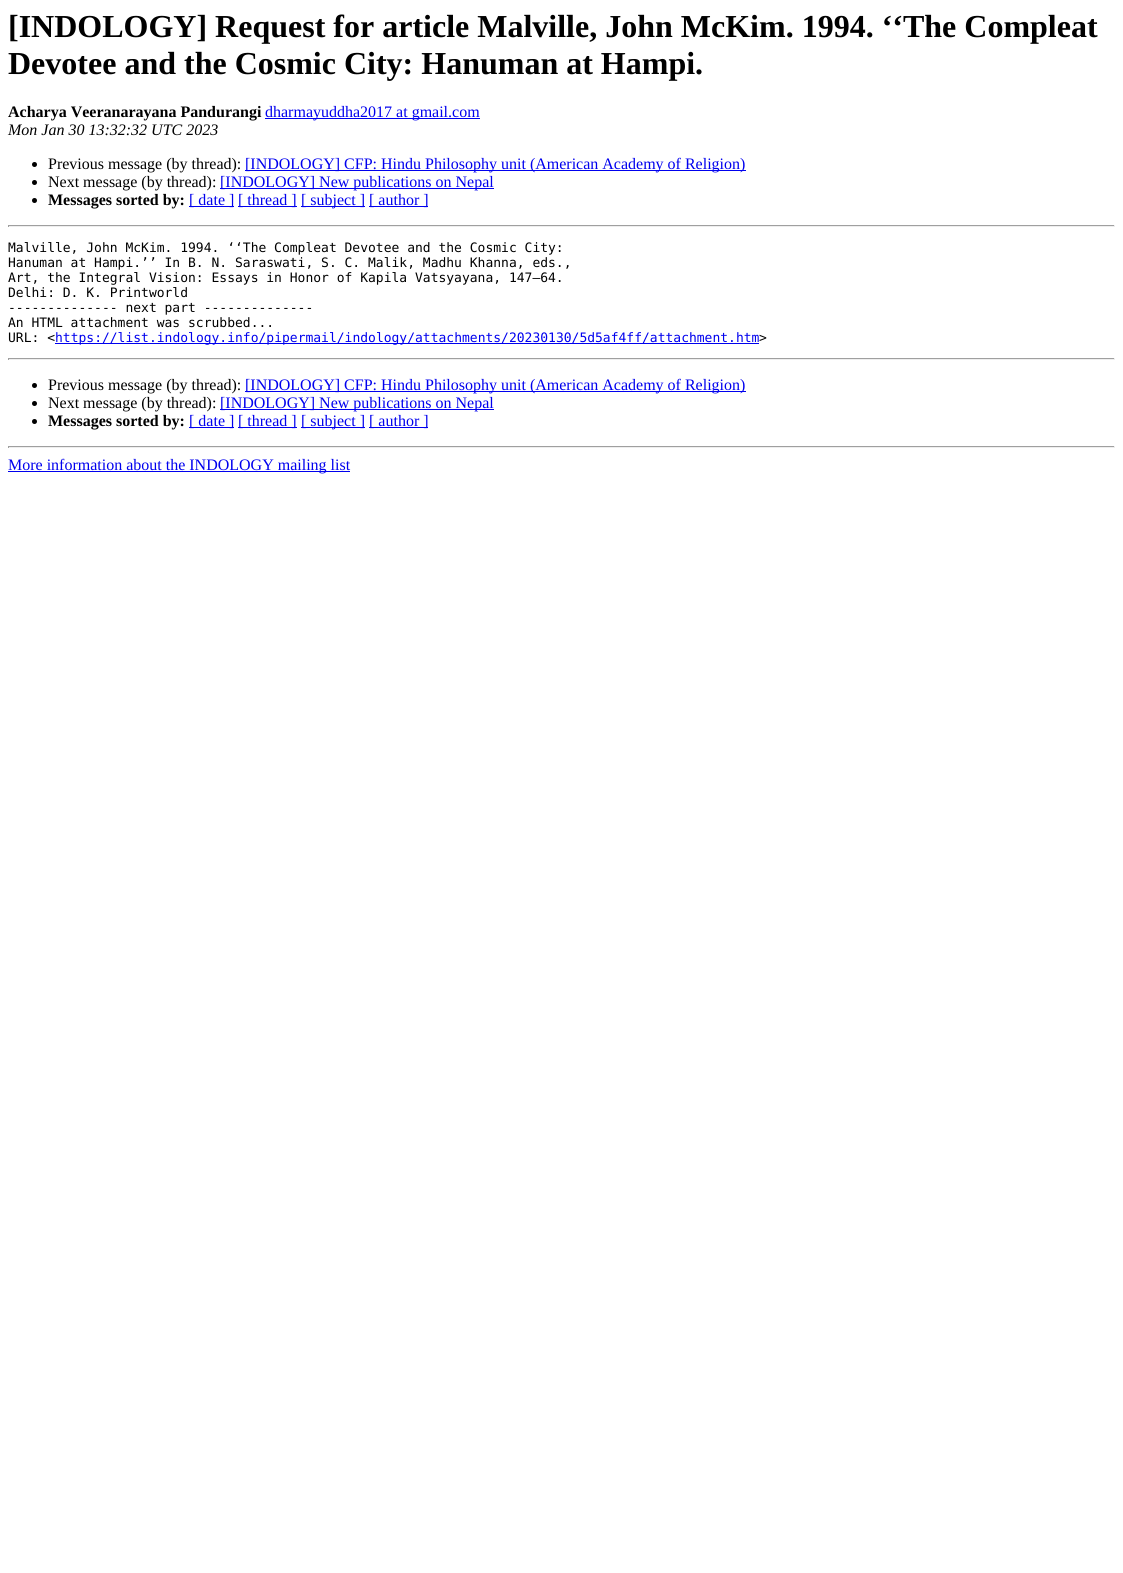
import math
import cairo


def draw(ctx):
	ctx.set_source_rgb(1, 1, 1)
	ctx.paint()
	ctx.select_font_face('Liberation Serif', cairo.FONT_SLANT_NORMAL, cairo.FONT_WEIGHT_BOLD)
	ctx.set_font_size(32)
	ctx.set_source_rgb(0, 0, 0)
	ctx.move_to(8, 37)
	ctx.show_text('[INDOLOGY] Request for article Malville, John McKim. 1994. ‘‘The Compleat')
	ctx.move_to(8, 74)
	ctx.show_text('Devotee and the Cosmic City: Hanuman at Hampi.')
	ctx.set_font_size(16)
	ctx.move_to(8, 117)
	ctx.show_text('Acharya Veeranarayana Pandurangi')
	ctx.set_source_rgb(0, 0, 0.933)
	ctx.rectangle(265, 118, 215, 1)
	ctx.fill()
	ctx.select_font_face('Liberation Serif')
	ctx.move_to(265, 117)
	ctx.show_text('dharmayuddha2017 at gmail.com')
	ctx.select_font_face('Liberation Serif', cairo.FONT_SLANT_ITALIC)
	ctx.set_source_rgb(0, 0, 0)
	ctx.move_to(8, 135)
	ctx.show_text('Mon Jan 30 13:32:32 UTC 2023')
	ctx.new_path()
	ctx.arc(34.5, 164.5, 2.5, 0, 2 * math.pi)
	ctx.fill()
	ctx.select_font_face('Liberation Serif')
	ctx.move_to(48, 169)
	ctx.show_text('Previous message (by thread):')
	ctx.set_source_rgb(0, 0, 0.933)
	ctx.rectangle(245, 170, 501, 1)
	ctx.fill()
	ctx.move_to(245, 169)
	ctx.show_text('[INDOLOGY] CFP: Hindu Philosophy unit (American Academy of Religion)')
	ctx.set_source_rgb(0, 0, 0)
	ctx.new_path()
	ctx.arc(34.5, 182.5, 2.5, 0, 2 * math.pi)
	ctx.fill()
	ctx.move_to(48, 187)
	ctx.show_text('Next message (by thread):')
	ctx.set_source_rgb(0, 0, 0.933)
	ctx.rectangle(220, 188, 274, 1)
	ctx.fill()
	ctx.move_to(220, 187)
	ctx.show_text('[INDOLOGY] New publications on Nepal')
	ctx.set_source_rgb(0, 0, 0)
	ctx.new_path()
	ctx.arc(34.5, 200.5, 2.5, 0, 2 * math.pi)
	ctx.fill()
	ctx.select_font_face('Liberation Serif', cairo.FONT_SLANT_NORMAL, cairo.FONT_WEIGHT_BOLD)
	ctx.move_to(48, 205)
	ctx.show_text('Messages sorted by:')
	ctx.set_source_rgb(0, 0, 0.933)
	ctx.rectangle(189, 206, 45, 1)
	ctx.fill()
	ctx.select_font_face('Liberation Serif')
	ctx.move_to(189, 205)
	ctx.show_text('[ date ]')
	ctx.rectangle(238, 206, 59, 1)
	ctx.fill()
	ctx.move_to(238, 205)
	ctx.show_text('[ thread ]')
	ctx.rectangle(301, 206, 64, 1)
	ctx.fill()
	ctx.move_to(301, 205)
	ctx.show_text('[ subject ]')
	ctx.rectangle(369, 206, 59, 1)
	ctx.fill()
	ctx.move_to(369, 205)
	ctx.show_text('[ author ]')
	ctx.set_source_rgb(0.624, 0.624, 0.624)
	ctx.rectangle(8, 225, 1107, 1)
	ctx.fill()
	ctx.set_source_rgb(0.933, 0.933, 0.933)
	ctx.rectangle(1114, 225, 1, 2)
	ctx.rectangle(8, 226, 1107, 1)
	ctx.fill()
	ctx.set_source_rgb(0.624, 0.624, 0.624)
	ctx.rectangle(8, 225, 1, 2)
	ctx.fill()
	ctx.select_font_face('DejaVu Sans Mono')
	ctx.set_font_size(13)
	ctx.set_source_rgb(0, 0, 0)
	for x, y, s in [
		(8, 252, 'Malville, John McKim. 1994. ‘‘The Compleat Devotee and the Cosmic City:'),
		(8, 267, 'Hanuman at Hampi.’’ In B. N. Saraswati, S. C. Malik, Madhu Khanna, eds.,'),
		(8, 282, 'Art, the Integral Vision: Essays in Honor of Kapila Vatsyayana, 147–64.'),
		(8, 297, 'Delhi: D. K. Printworld'),
		(8, 312, '-------------- next part --------------'),
		(8, 327, 'An HTML attachment was scrubbed...'),
		(8, 342, 'URL: <'),
	]:
		ctx.move_to(x, y)
		ctx.show_text(s)
	ctx.set_source_rgb(0, 0, 0.933)
	ctx.rectangle(55, 343, 704, 1)
	ctx.fill()
	ctx.move_to(55, 342)
	ctx.show_text('https://list.indology.info/pipermail/indology/attachments/20230130/5d5af4ff/attachment.htm')
	ctx.set_source_rgb(0, 0, 0)
	ctx.move_to(759, 342)
	ctx.show_text('>')
	ctx.set_source_rgb(0.624, 0.624, 0.624)
	ctx.rectangle(8, 358, 1107, 1)
	ctx.fill()
	ctx.set_source_rgb(0.933, 0.933, 0.933)
	ctx.rectangle(1114, 358, 1, 2)
	ctx.rectangle(8, 359, 1107, 1)
	ctx.fill()
	ctx.set_source_rgb(0.624, 0.624, 0.624)
	ctx.rectangle(8, 358, 1, 2)
	ctx.fill()
	ctx.set_source_rgb(0, 0, 0)
	ctx.arc(34.5, 385.5, 2.5, 0, 2 * math.pi)
	ctx.fill()
	ctx.select_font_face('Liberation Serif')
	ctx.set_font_size(16)
	ctx.move_to(48, 390)
	ctx.show_text('Previous message (by thread):')
	ctx.set_source_rgb(0, 0, 0.933)
	ctx.rectangle(245, 391, 501, 1)
	ctx.fill()
	ctx.move_to(245, 390)
	ctx.show_text('[INDOLOGY] CFP: Hindu Philosophy unit (American Academy of Religion)')
	ctx.set_source_rgb(0, 0, 0)
	ctx.new_path()
	ctx.arc(34.5, 403.5, 2.5, 0, 2 * math.pi)
	ctx.fill()
	ctx.move_to(48, 408)
	ctx.show_text('Next message (by thread):')
	ctx.set_source_rgb(0, 0, 0.933)
	ctx.rectangle(220, 409, 274, 1)
	ctx.fill()
	ctx.move_to(220, 408)
	ctx.show_text('[INDOLOGY] New publications on Nepal')
	ctx.set_source_rgb(0, 0, 0)
	ctx.new_path()
	ctx.arc(34.5, 421.5, 2.5, 0, 2 * math.pi)
	ctx.fill()
	ctx.select_font_face('Liberation Serif', cairo.FONT_SLANT_NORMAL, cairo.FONT_WEIGHT_BOLD)
	ctx.move_to(48, 426)
	ctx.show_text('Messages sorted by:')
	ctx.set_source_rgb(0, 0, 0.933)
	ctx.rectangle(189, 427, 45, 1)
	ctx.fill()
	ctx.select_font_face('Liberation Serif')
	ctx.move_to(189, 426)
	ctx.show_text('[ date ]')
	ctx.rectangle(238, 427, 59, 1)
	ctx.fill()
	ctx.move_to(238, 426)
	ctx.show_text('[ thread ]')
	ctx.rectangle(301, 427, 64, 1)
	ctx.fill()
	ctx.move_to(301, 426)
	ctx.show_text('[ subject ]')
	ctx.rectangle(369, 427, 59, 1)
	ctx.fill()
	ctx.move_to(369, 426)
	ctx.show_text('[ author ]')
	ctx.set_source_rgb(0.624, 0.624, 0.624)
	ctx.rectangle(8, 446, 1107, 1)
	ctx.fill()
	ctx.set_source_rgb(0.933, 0.933, 0.933)
	ctx.rectangle(1114, 446, 1, 2)
	ctx.rectangle(8, 447, 1107, 1)
	ctx.fill()
	ctx.set_source_rgb(0.624, 0.624, 0.624)
	ctx.rectangle(8, 446, 1, 2)
	ctx.fill()
	ctx.set_source_rgb(0, 0, 0.933)
	ctx.rectangle(8, 471, 342, 1)
	ctx.fill()
	ctx.move_to(8, 470)
	ctx.show_text('More information about the INDOLOGY mailing list')


surface = cairo.ImageSurface(cairo.FORMAT_RGB24, 1123, 1573)
ctx = cairo.Context(surface)
options = cairo.FontOptions()
options.set_hint_metrics(cairo.HINT_METRICS_OFF)
options.set_hint_style(cairo.HINT_STYLE_NONE)
ctx.set_font_options(options)
ctx.set_miter_limit(4)
draw(ctx)
surface.write_to_png('image.png')
